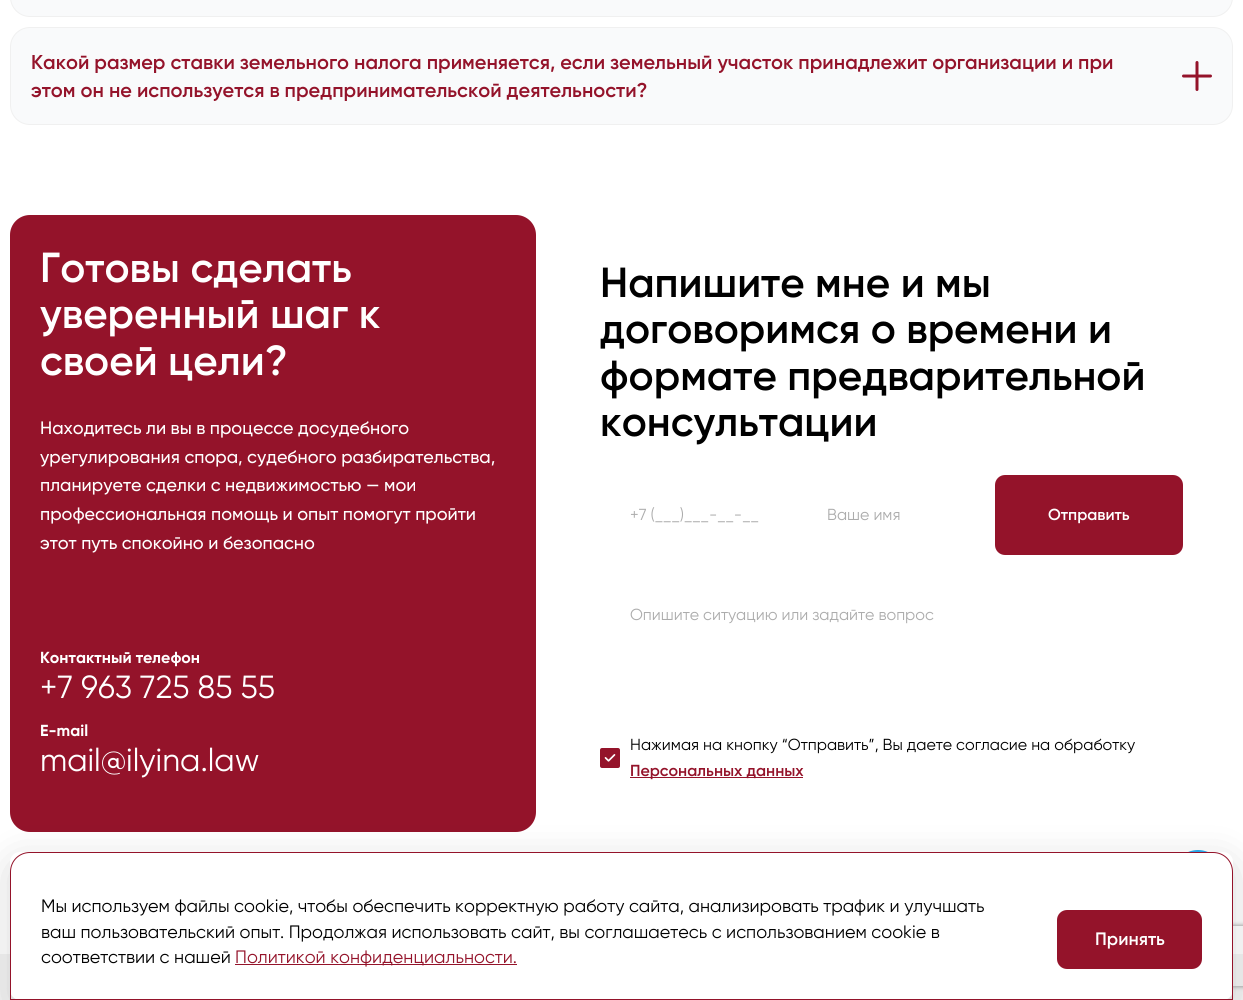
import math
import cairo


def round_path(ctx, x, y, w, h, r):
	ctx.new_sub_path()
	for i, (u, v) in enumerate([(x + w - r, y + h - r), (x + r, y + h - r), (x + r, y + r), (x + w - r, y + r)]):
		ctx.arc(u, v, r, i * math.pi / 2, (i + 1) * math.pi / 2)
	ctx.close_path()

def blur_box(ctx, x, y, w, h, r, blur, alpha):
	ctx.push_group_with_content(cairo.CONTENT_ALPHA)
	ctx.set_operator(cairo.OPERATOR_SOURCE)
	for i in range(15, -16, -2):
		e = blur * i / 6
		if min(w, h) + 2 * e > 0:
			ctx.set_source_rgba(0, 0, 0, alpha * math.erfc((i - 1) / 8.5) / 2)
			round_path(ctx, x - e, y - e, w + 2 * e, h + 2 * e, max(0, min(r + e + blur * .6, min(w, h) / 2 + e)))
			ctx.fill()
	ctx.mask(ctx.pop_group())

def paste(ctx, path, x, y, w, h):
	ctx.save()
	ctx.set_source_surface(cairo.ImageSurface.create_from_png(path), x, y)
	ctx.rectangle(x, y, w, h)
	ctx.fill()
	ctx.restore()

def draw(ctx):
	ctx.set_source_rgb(1, 1, 1)
	ctx.paint()
	ctx.set_source_rgb(0.976, 0.98, 0.984)
	round_path(ctx, 10.5, -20.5, 1222, 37, 19.5)
	ctx.fill_preserve()
	ctx.set_source_rgb(0.941, 0.941, 0.941)
	ctx.set_line_width(1)
	ctx.stroke()
	ctx.set_source_rgb(0.976, 0.98, 0.984)
	round_path(ctx, 10.5, 27.5, 1222, 97, 19.5)
	ctx.fill_preserve()
	ctx.set_source_rgb(0.941, 0.941, 0.941)
	ctx.stroke()
	ctx.select_font_face('Gilroy SemiBold')
	ctx.set_font_size(20)
	ctx.set_source_rgb(0.58, 0.075, 0.165)
	ctx.move_to(31, 69)
	ctx.show_text('Какой размер ставки земельного налога применяется, если земельный участок принадлежит организации и при')
	ctx.move_to(31, 97)
	ctx.show_text('этом он не используется в предпринимательской деятельности?')
	paste(ctx, 'media/1.png', 1182, 61, 30, 30)
	round_path(ctx, 10, 215, 526, 617, 20)
	ctx.fill()
	ctx.set_font_size(42)
	ctx.set_source_rgb(1, 1, 1)
	for x, y, s in [
		(40, 282, 'Готовы сделать'),
		(40, 328, 'уверенный шаг к'),
		(40, 375, 'своей цели?'),
	]:
		ctx.move_to(x, y)
		ctx.show_text(s)
	ctx.select_font_face('Gilroy Medium')
	ctx.set_font_size(18)
	for x, y, s in [
		(40, 434, 'Находитесь ли вы в процессе досудебного'),
		(40, 463, 'урегулирования спора, судебного разбирательства,'),
		(40, 491, 'планируете сделки с недвижимостью — мои'),
		(40, 520, 'профессиональная помощь и опыт помогут пройти'),
		(40, 549, 'этот путь спокойно и безопасно'),
	]:
		ctx.move_to(x, y)
		ctx.show_text(s)
	ctx.select_font_face('Gilroy', cairo.FONT_SLANT_NORMAL, cairo.FONT_WEIGHT_BOLD)
	ctx.set_font_size(16)
	ctx.move_to(40, 663)
	ctx.show_text('Контактный телефон')
	ctx.select_font_face('Gilroy')
	ctx.set_font_size(32)
	ctx.move_to(40, 698)
	ctx.show_text('+7 963 725 85 55')
	ctx.select_font_face('Gilroy', cairo.FONT_SLANT_NORMAL, cairo.FONT_WEIGHT_BOLD)
	ctx.set_font_size(16)
	ctx.move_to(40, 736)
	ctx.show_text('E-mail')
	ctx.select_font_face('Gilroy')
	ctx.set_font_size(32)
	ctx.move_to(40, 771)
	ctx.show_text('mail@ilyina.law')
	ctx.select_font_face('Gilroy SemiBold')
	ctx.set_font_size(42)
	ctx.set_source_rgb(0, 0, 0)
	for x, y, s in [
		(600, 297, 'Напишите мне и мы'),
		(600, 343, 'договоримся о времени и'),
		(600, 390, 'формате предварительной'),
		(600, 436, 'консультации'),
	]:
		ctx.move_to(x, y)
		ctx.show_text(s)
	ctx.select_font_face('Gilroy')
	ctx.set_font_size(16)
	ctx.set_source_rgb(0.675, 0.675, 0.675)
	ctx.move_to(630, 520)
	ctx.show_text('+7 (___)___-__-__')
	ctx.move_to(827, 520)
	ctx.show_text('Ваше имя')
	ctx.set_source_rgb(0.58, 0.075, 0.165)
	round_path(ctx, 995, 475, 188, 80, 10)
	ctx.fill()
	ctx.select_font_face('Gilroy SemiBold')
	ctx.set_source_rgb(1, 1, 1)
	ctx.move_to(1048, 520)
	ctx.show_text('Отправить')
	ctx.select_font_face('Gilroy')
	ctx.set_source_rgb(0.675, 0.675, 0.675)
	ctx.move_to(630, 620)
	ctx.show_text('Опишите ситуацию или задайте вопрос')
	ctx.set_source_rgb(0.58, 0.075, 0.165)
	round_path(ctx, 600, 748, 20, 20, 2)
	ctx.fill()
	paste(ctx, 'media/2.png', 604, 754, 12, 8)
	ctx.set_source_rgb(0, 0, 0)
	ctx.move_to(630, 750)
	ctx.show_text('Нажимая на кнопку “Отправить”, Вы даете согласие на обработку')
	ctx.set_source_rgb(0.58, 0.075, 0.165)
	ctx.rectangle(630, 777, 173, 1)
	ctx.fill()
	ctx.select_font_face('Gilroy SemiBold')
	ctx.move_to(630, 776)
	ctx.show_text('Персональных данных')
	paste(ctx, 'media/3.png', 1188, 850, 20, 2)
	ctx.set_source_rgb(0.953, 0.953, 0.953)
	ctx.rectangle(0, 954, 1243, 46)
	ctx.fill()
	ctx.set_source_rgb(0, 0, 0)
	blur_box(ctx, 10, 862, 1223, 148, 10, 20, 0.15)
	ctx.save()
	ctx.set_fill_rule(cairo.FILL_RULE_EVEN_ODD)
	ctx.new_path()
	ctx.move_to(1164, 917)
	ctx.line_to(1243, 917)
	ctx.line_to(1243, 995)
	ctx.line_to(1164, 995)
	ctx.close_path()
	ctx.move_to(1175, 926)
	ctx.line_to(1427, 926)
	ctx.curve_to(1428, 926, 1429, 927, 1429, 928)
	ctx.line_to(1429, 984)
	ctx.curve_to(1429, 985, 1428, 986, 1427, 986)
	ctx.line_to(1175, 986)
	ctx.curve_to(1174, 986, 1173, 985, 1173, 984)
	ctx.line_to(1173, 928)
	ctx.curve_to(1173, 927, 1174, 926, 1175, 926)
	ctx.close_path()
	ctx.clip()
	ctx.set_source_rgb(0.502, 0.502, 0.502)
	blur_box(ctx, 1173, 926, 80, 60, 2, 2.5, 1)
	ctx.restore()
	ctx.set_source_rgb(1, 1, 1)
	round_path(ctx, 10, 852, 1223, 148, 10)
	ctx.fill()
	ctx.new_path()
	ctx.move_to(30, 852.5)
	ctx.line_to(1213, 852.5)
	ctx.curve_to(1224, 852.5, 1232.5, 861, 1232.5, 872)
	ctx.line_to(1232.5, 999.5)
	ctx.line_to(10.5, 999.5)
	ctx.line_to(10.5, 872)
	ctx.curve_to(10.5, 861, 19, 852.5, 30, 852.5)
	ctx.close_path()
	ctx.set_source_rgb(0.58, 0.075, 0.165)
	ctx.stroke()
	ctx.select_font_face('Gilroy')
	ctx.set_font_size(18)
	ctx.set_source_rgb(0, 0, 0)
	for x, y, s in [
		(41, 912, 'Мы используем файлы cookie, чтобы обеспечить корректную работу сайта, анализировать трафик и улучшать'),
		(41, 938, 'ваш пользовательский опыт. Продолжая использовать сайт, вы соглашаетесь с использованием cookie в'),
		(41, 963, 'соответствии с нашей'),
	]:
		ctx.move_to(x, y)
		ctx.show_text(s)
	ctx.set_source_rgb(0.58, 0.075, 0.165)
	ctx.rectangle(235, 964, 282, 1)
	ctx.fill()
	ctx.move_to(235, 963)
	ctx.show_text('Политикой конфиденциальности.')
	round_path(ctx, 1057, 910, 145, 59, 10)
	ctx.fill()
	ctx.select_font_face('Gilroy SemiBold')
	ctx.set_source_rgb(1, 1, 1)
	ctx.move_to(1095, 945)
	ctx.show_text('Принять')


surface = cairo.ImageSurface(cairo.FORMAT_RGB24, 1243, 1000)
ctx = cairo.Context(surface)
options = cairo.FontOptions()
options.set_hint_metrics(cairo.HINT_METRICS_OFF)
options.set_hint_style(cairo.HINT_STYLE_NONE)
ctx.set_font_options(options)
ctx.set_miter_limit(4)
draw(ctx)
surface.write_to_png('image.png')
